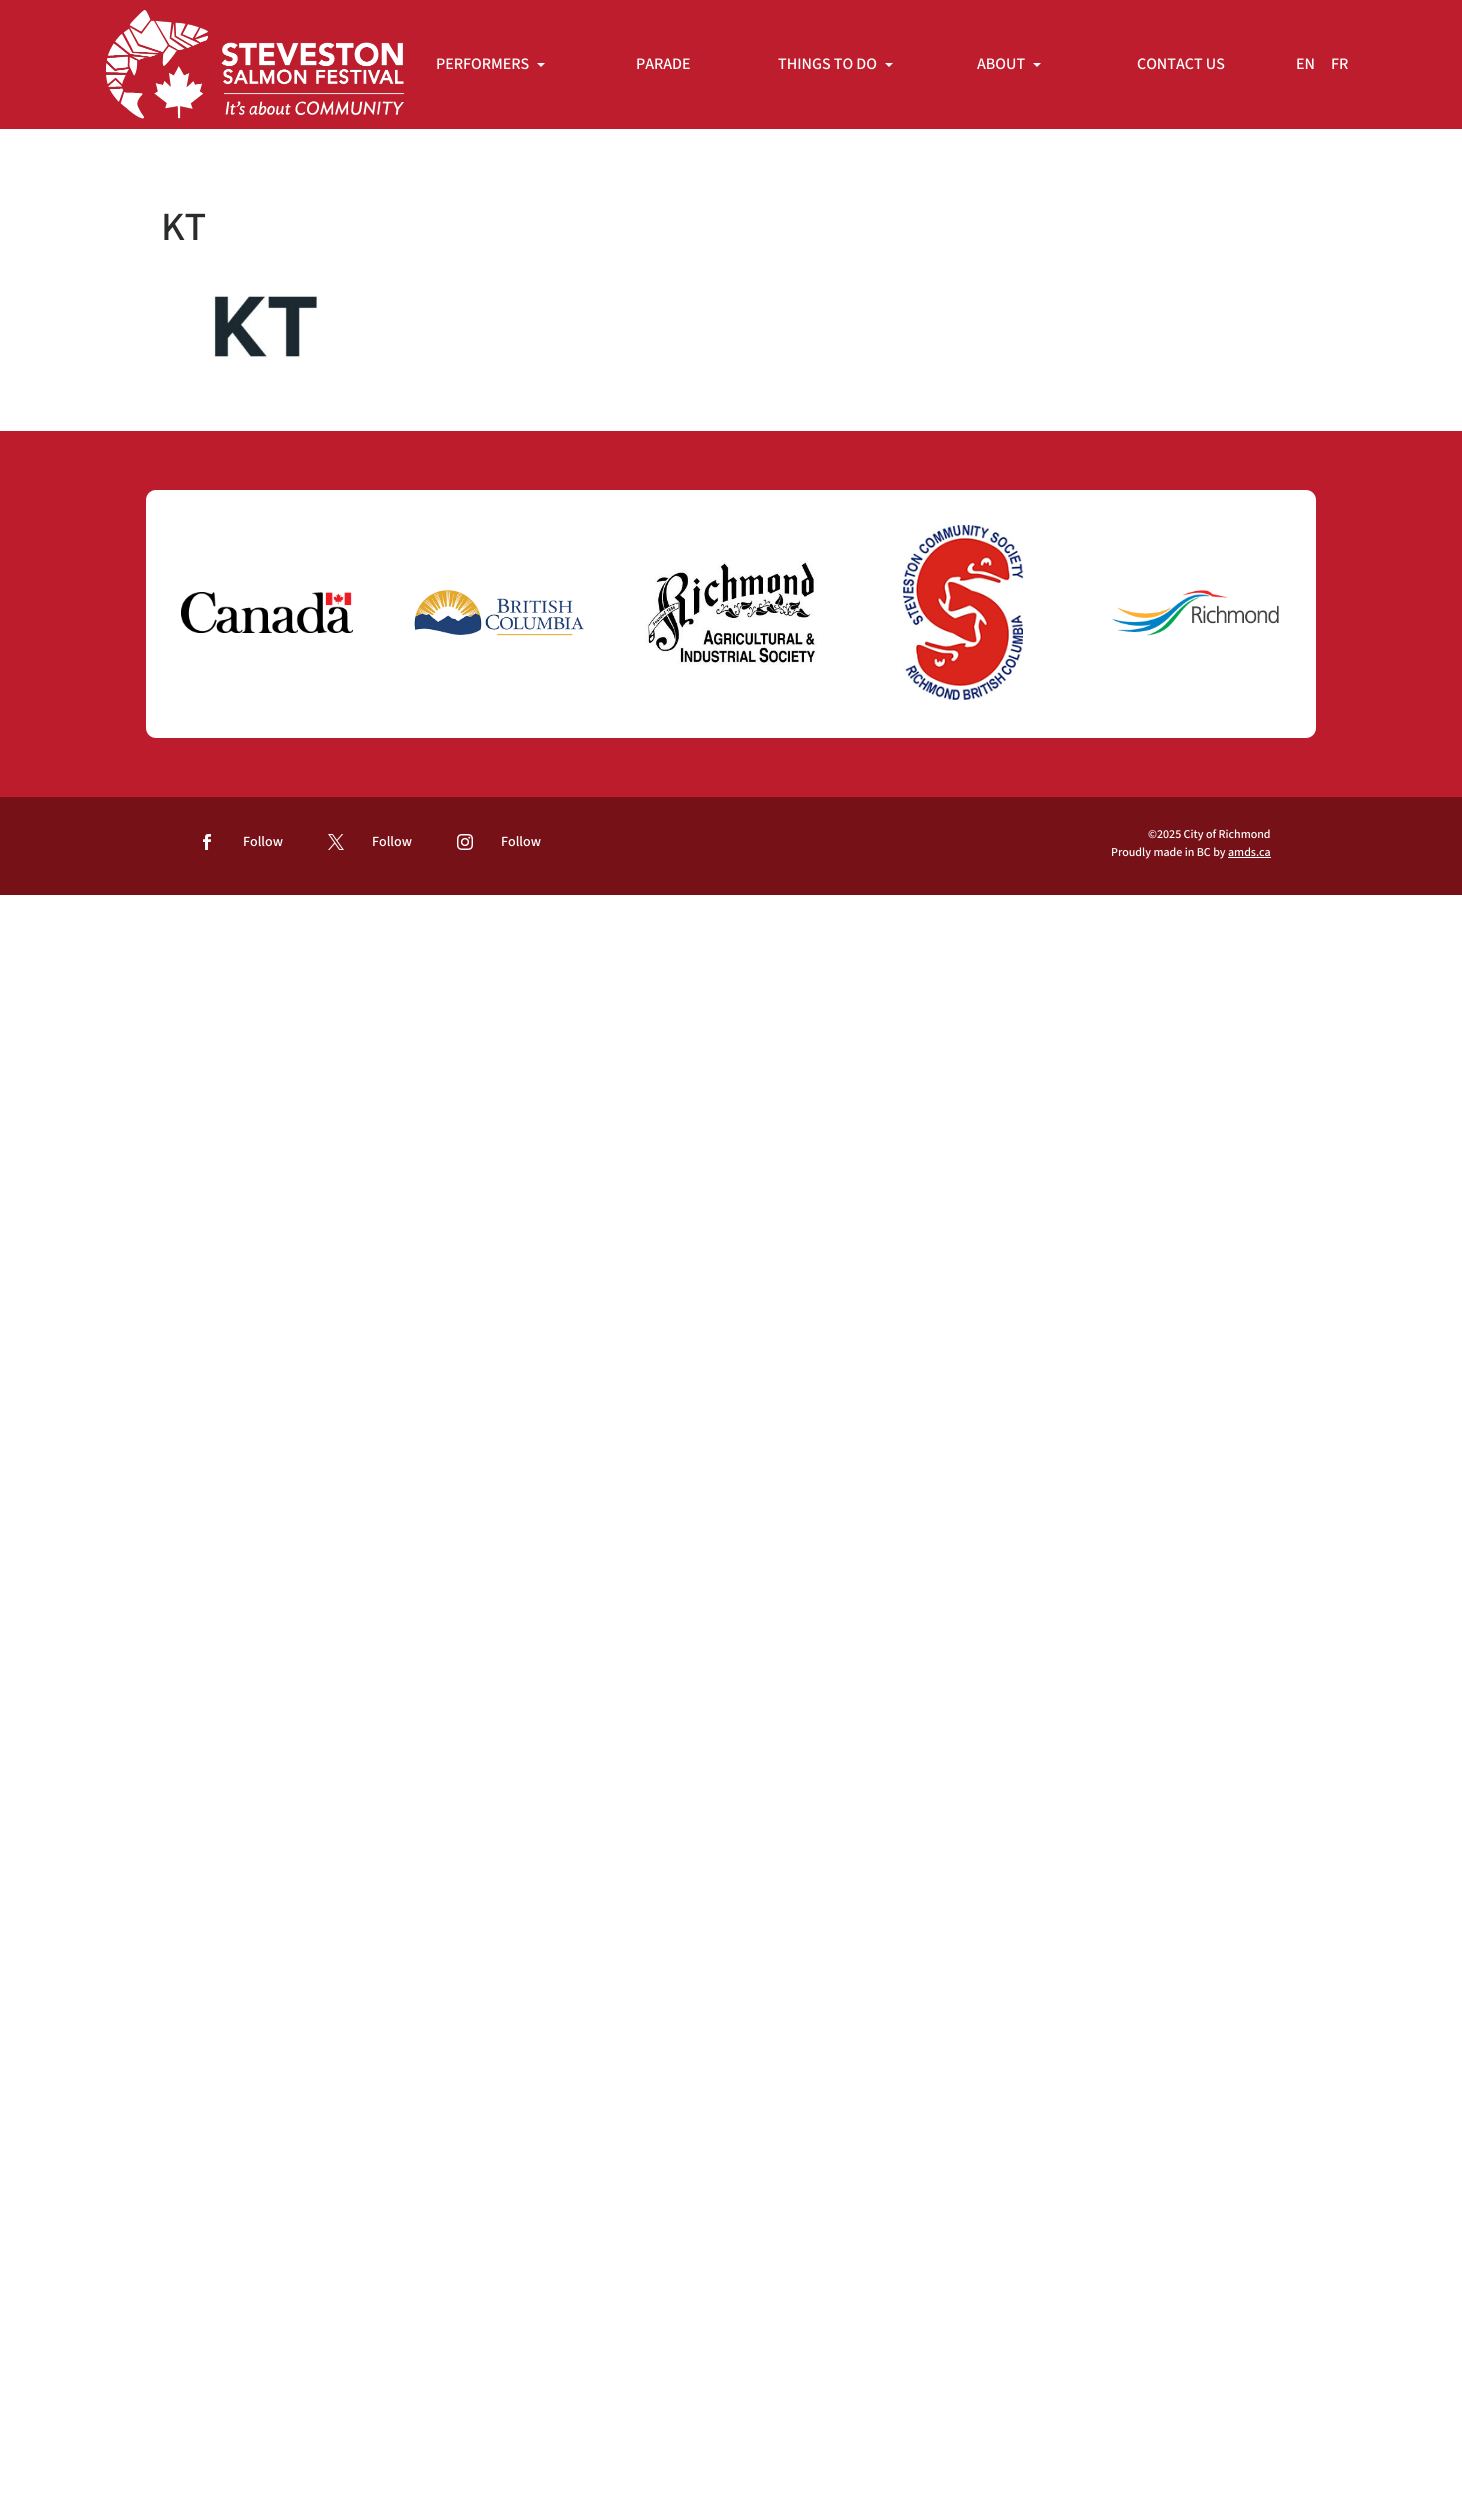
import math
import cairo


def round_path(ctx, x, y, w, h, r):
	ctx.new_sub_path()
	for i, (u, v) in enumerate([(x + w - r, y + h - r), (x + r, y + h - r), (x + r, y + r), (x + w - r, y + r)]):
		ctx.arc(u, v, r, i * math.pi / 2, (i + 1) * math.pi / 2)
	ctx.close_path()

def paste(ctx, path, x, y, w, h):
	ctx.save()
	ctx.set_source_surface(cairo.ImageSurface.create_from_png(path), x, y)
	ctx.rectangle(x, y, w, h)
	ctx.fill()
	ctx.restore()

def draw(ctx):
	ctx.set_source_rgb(1, 1, 1)
	ctx.paint()
	ctx.set_source_rgb(0.741, 0.114, 0.173)
	ctx.rectangle(0, 0, 1462, 129)
	ctx.fill()
	paste(ctx, 'media/1.png', 106, 10, 298, 109)
	ctx.select_font_face('Source Sans 3 Medium')
	ctx.set_font_size(16)
	ctx.set_source_rgb(1, 1, 1)
	ctx.move_to(436, 69)
	ctx.show_text('PERFORMERS')
	ctx.new_path()
	ctx.move_to(537, 63)
	ctx.line_to(545, 63)
	ctx.line_to(541, 67)
	ctx.close_path()
	ctx.fill()
	ctx.move_to(636, 69)
	ctx.show_text('PARADE')
	ctx.move_to(778, 69)
	ctx.show_text('THINGS TO DO')
	ctx.new_path()
	ctx.move_to(885, 63)
	ctx.line_to(893, 63)
	ctx.line_to(889, 67)
	ctx.close_path()
	ctx.fill()
	ctx.move_to(977, 69)
	ctx.show_text('ABOUT')
	ctx.new_path()
	ctx.move_to(1033, 63)
	ctx.line_to(1041, 63)
	ctx.line_to(1037, 67)
	ctx.close_path()
	ctx.fill()
	for x, y, s in [
		(1137, 69, 'CONTACT US'),
		(1296, 69, 'EN'),
		(1331, 69, 'FR'),
	]:
		ctx.move_to(x, y)
		ctx.show_text(s)
	ctx.set_font_size(40)
	ctx.set_source_rgb(0.161, 0.169, 0.173)
	ctx.move_to(161, 240)
	ctx.show_text('KT')
	paste(ctx, 'media/2.png', 213, 294, 105, 64)
	ctx.set_source_rgb(0.741, 0.11, 0.173)
	ctx.rectangle(0, 431, 1462, 366)
	ctx.fill()
	ctx.set_source_rgb(1, 1, 1)
	round_path(ctx, 148.5, 492.5, 1165, 243, 7.5)
	ctx.fill_preserve()
	ctx.set_line_width(5)
	ctx.stroke()
	paste(ctx, 'media/3.png', 181, 592, 172, 41)
	paste(ctx, 'media/4.png', 414, 590, 170, 46)
	paste(ctx, 'media/5.png', 645, 560, 172, 105)
	paste(ctx, 'media/6.png', 903, 525, 120, 175)
	paste(ctx, 'media/7.png', 1112, 590, 167, 46)
	ctx.set_source_rgb(0.467, 0.067, 0.094)
	ctx.rectangle(0, 797, 1462, 98)
	ctx.fill()
	paste(ctx, 'media/8.png', 203, 834, 8, 16)
	ctx.set_font_size(14)
	ctx.set_source_rgb(1, 1, 1)
	ctx.move_to(243, 846)
	ctx.show_text('Follow')
	paste(ctx, 'media/9.png', 328, 834, 16, 16)
	ctx.move_to(372, 846)
	ctx.show_text('Follow')
	paste(ctx, 'media/10.png', 457, 834, 16, 16)
	ctx.move_to(501, 846)
	ctx.show_text('Follow')
	ctx.set_font_size(12)
	ctx.move_to(1148, 838)
	ctx.show_text('©2025 City of Richmond')
	ctx.move_to(1111, 856)
	ctx.show_text('Proudly made in BC by amds.ca')
	ctx.rectangle(1228, 857, 43, 1)
	ctx.fill()


surface = cairo.ImageSurface(cairo.FORMAT_RGB24, 1462, 2517)
ctx = cairo.Context(surface)
options = cairo.FontOptions()
options.set_hint_metrics(cairo.HINT_METRICS_OFF)
options.set_hint_style(cairo.HINT_STYLE_NONE)
ctx.set_font_options(options)
ctx.set_miter_limit(4)
draw(ctx)
surface.write_to_png('image.png')
